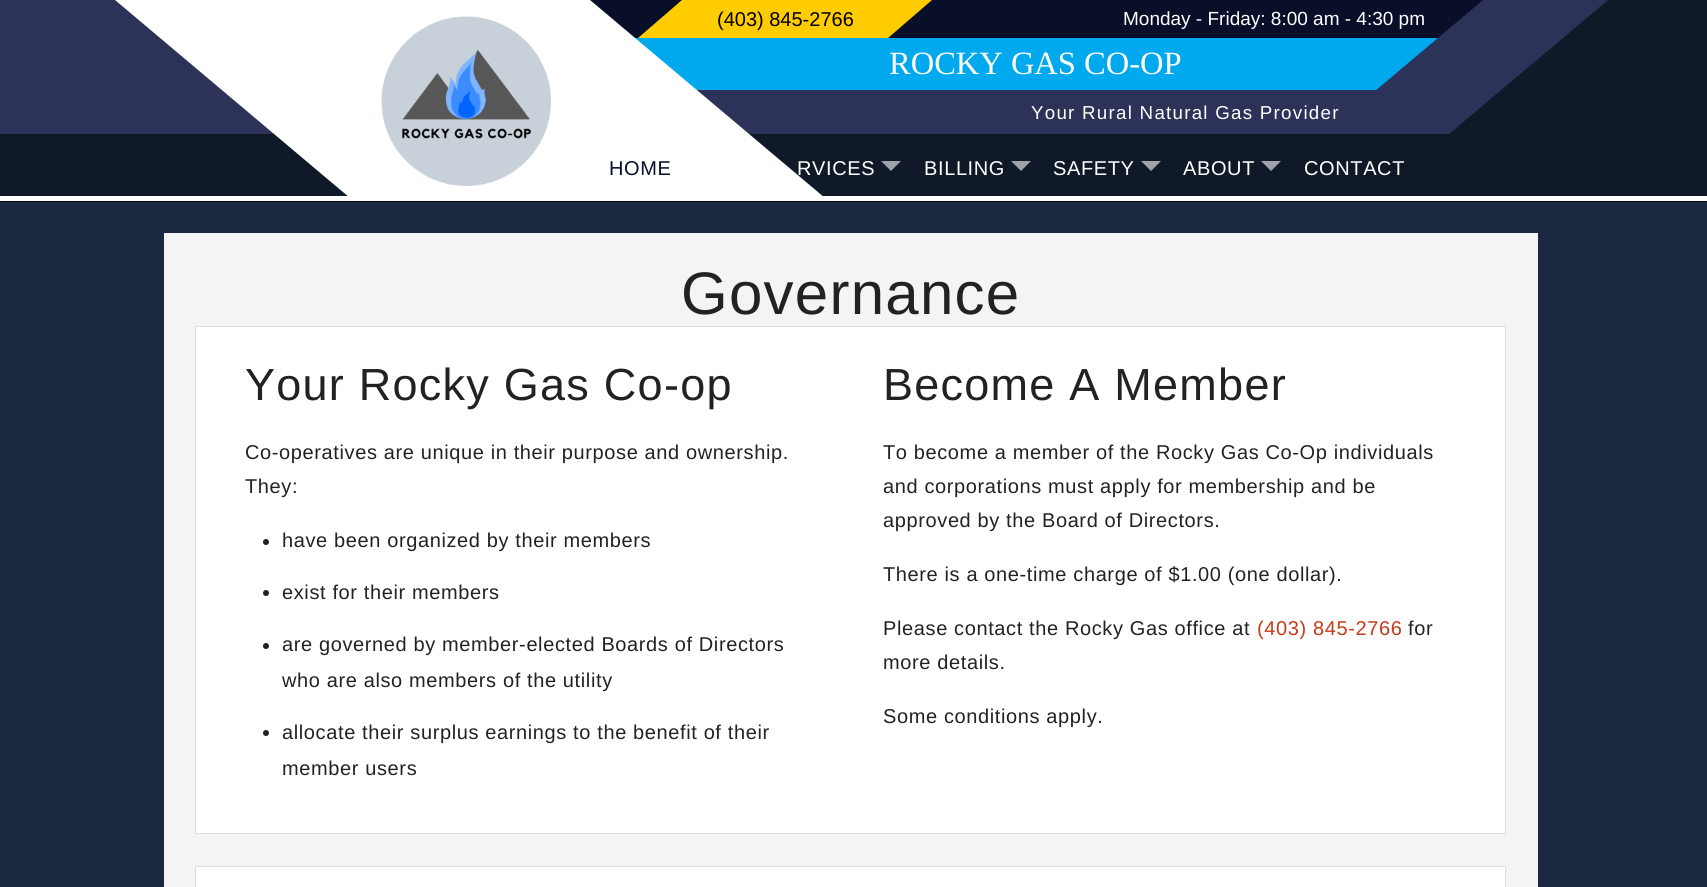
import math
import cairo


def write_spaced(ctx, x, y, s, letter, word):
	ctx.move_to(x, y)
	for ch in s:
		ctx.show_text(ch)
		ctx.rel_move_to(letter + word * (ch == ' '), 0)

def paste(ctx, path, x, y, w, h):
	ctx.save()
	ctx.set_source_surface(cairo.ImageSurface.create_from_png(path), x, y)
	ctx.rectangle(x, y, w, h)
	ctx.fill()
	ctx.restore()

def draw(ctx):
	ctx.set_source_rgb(1, 1, 1)
	ctx.paint()
	ctx.set_source_rgb(0.063, 0.098, 0.153)
	ctx.rectangle(0, 0, 1707, 196)
	ctx.fill()
	ctx.set_source_rgb(0.176, 0.196, 0.345)
	ctx.rectangle(0, 0, 698, 134)
	ctx.fill()
	ctx.set_source_rgb(0.039, 0.055, 0.161)
	ctx.rectangle(590, 0, 893, 38)
	ctx.fill()
	ctx.set_source_rgb(1, 0.8, 0)
	ctx.new_path()
	ctx.move_to(682, 0)
	ctx.line_to(932, 0)
	ctx.line_to(888, 38)
	ctx.line_to(638, 38)
	ctx.close_path()
	ctx.fill()
	ctx.select_font_face('Liberation Sans')
	ctx.set_font_size(20)
	ctx.set_source_rgb(0, 0, 0)
	ctx.move_to(717, 26)
	ctx.show_text('(403) 845-2766')
	ctx.set_source_rgb(0, 0.663, 0.929)
	ctx.rectangle(635, 38, 803, 52)
	ctx.fill()
	ctx.set_source_rgb(0.176, 0.196, 0.345)
	ctx.rectangle(698, 90, 679, 44)
	ctx.fill()
	ctx.set_source_rgb(1, 1, 1)
	ctx.new_path()
	ctx.move_to(115, 0)
	ctx.line_to(590, 0)
	ctx.line_to(825, 198)
	ctx.line_to(350, 198)
	ctx.close_path()
	ctx.fill()
	paste(ctx, 'media/1.png', 381, 16, 170, 170)
	ctx.set_font_size(19)
	ctx.move_to(1123, 25)
	ctx.show_text('Monday - Friday: 8:00 am - 4:30 pm')
	ctx.select_font_face('Liberation Serif')
	ctx.set_font_size(32.5)
	ctx.move_to(889, 74)
	ctx.show_text('ROCKY GAS CO-OP')
	ctx.select_font_face('Liberation Sans')
	ctx.set_font_size(18.75)
	write_spaced(ctx, 1031, 119, 'Your Rural Natural Gas Provider', 1.25, 0)
	ctx.set_source_rgb(0.176, 0.196, 0.345)
	ctx.new_path()
	ctx.move_to(1483, 0)
	ctx.line_to(1608, 0)
	ctx.line_to(1449, 134)
	ctx.line_to(1324, 134)
	ctx.close_path()
	ctx.fill()
	ctx.set_font_size(20)
	ctx.set_source_rgb(0.039, 0.055, 0.161)
	write_spaced(ctx, 609, 175, 'HOME', 0.62, 0)
	ctx.set_source_rgb(1, 1, 1)
	write_spaced(ctx, 797, 175, 'RVICES', 0.62, 0)
	ctx.set_source_rgb(0.624, 0.639, 0.663)
	ctx.new_path()
	ctx.move_to(881, 161)
	ctx.line_to(901, 161)
	ctx.line_to(891, 171)
	ctx.close_path()
	ctx.fill()
	ctx.set_source_rgb(1, 1, 1)
	write_spaced(ctx, 924, 175, 'BILLING', 0.62, 0)
	ctx.set_source_rgb(0.624, 0.639, 0.663)
	ctx.new_path()
	ctx.move_to(1011, 161)
	ctx.line_to(1031, 161)
	ctx.line_to(1021, 171)
	ctx.close_path()
	ctx.fill()
	ctx.set_source_rgb(1, 1, 1)
	write_spaced(ctx, 1053, 175, 'SAFETY', 0.62, 0)
	ctx.set_source_rgb(0.624, 0.639, 0.663)
	ctx.new_path()
	ctx.move_to(1141, 161)
	ctx.line_to(1161, 161)
	ctx.line_to(1151, 171)
	ctx.close_path()
	ctx.fill()
	ctx.set_source_rgb(1, 1, 1)
	write_spaced(ctx, 1183, 175, 'ABOUT', 0.62, 0)
	ctx.set_source_rgb(0.624, 0.639, 0.663)
	ctx.new_path()
	ctx.move_to(1261, 161)
	ctx.line_to(1281, 161)
	ctx.line_to(1271, 171)
	ctx.close_path()
	ctx.fill()
	ctx.set_source_rgb(1, 1, 1)
	write_spaced(ctx, 1304, 175, 'CONTACT', 0.62, 0)
	ctx.set_source_rgb(0.106, 0.161, 0.251)
	ctx.rectangle(0, 202, 1707, 685)
	ctx.fill()
	ctx.set_source_rgb(0, 0, 0)
	ctx.rectangle(0, 201, 1707, 1)
	ctx.fill()
	ctx.set_source_rgb(0.953, 0.957, 0.961)
	ctx.rectangle(164, 233, 1374, 654)
	ctx.fill()
	ctx.set_font_size(60)
	ctx.set_source_rgb(0.133, 0.133, 0.133)
	write_spaced(ctx, 681, 314, 'Governance', 1.25, 0)
	ctx.set_source_rgb(1, 1, 1)
	ctx.rectangle(195.5, 326.5, 1310, 507)
	ctx.fill_preserve()
	ctx.set_source_rgb(0.867, 0.867, 0.867)
	ctx.set_line_width(1)
	ctx.stroke()
	ctx.set_font_size(45)
	ctx.set_source_rgb(0.133, 0.133, 0.133)
	write_spaced(ctx, 245, 400, 'Your Rocky Gas Co-op', 1.25, 0)
	ctx.set_font_size(20)
	write_spaced(ctx, 245, 459, 'Co-operatives are unique in their purpose and ownership.', 0.62, 0)
	write_spaced(ctx, 245, 493, 'They:', 0.62, 0)
	ctx.new_path()
	ctx.arc(266, 542, 3, 0, 2 * math.pi)
	ctx.fill()
	write_spaced(ctx, 282, 547, 'have been organized by their members', 0.62, 0)
	ctx.new_path()
	ctx.arc(266, 593, 3, 0, 2 * math.pi)
	ctx.fill()
	write_spaced(ctx, 282, 599, 'exist for their members', 0.62, 0)
	ctx.new_path()
	ctx.arc(266, 646, 3, 0, 2 * math.pi)
	ctx.fill()
	write_spaced(ctx, 282, 651, 'are governed by member-elected Boards of Directors', 0.62, 0)
	write_spaced(ctx, 282, 687, 'who are also members of the utility', 0.62, 0)
	ctx.new_path()
	ctx.arc(266, 733, 3, 0, 2 * math.pi)
	ctx.fill()
	write_spaced(ctx, 282, 739, 'allocate their surplus earnings to the benefit of their', 0.62, 0)
	write_spaced(ctx, 282, 775, 'member users', 0.62, 0)
	ctx.set_font_size(45)
	write_spaced(ctx, 883, 400, 'Become A Member', 1.25, 0)
	ctx.set_font_size(20)
	for x, y, s in [
		(883, 459, 'To become a member of the Rocky Gas Co-Op individuals'),
		(883, 493, 'and corporations must apply for membership and be'),
		(883, 527, 'approved by the Board of Directors.'),
		(883, 581, 'There is a one-time charge of $1.00 (one dollar).'),
		(883, 635, 'Please contact the Rocky Gas office at'),
	]:
		write_spaced(ctx, x, y, s, 0.62, 0)
	ctx.set_source_rgb(0.769, 0.231, 0.098)
	write_spaced(ctx, 1257, 635, '(403) 845-2766', 0.62, 0)
	ctx.set_source_rgb(0.133, 0.133, 0.133)
	for x, y, s in [
		(1408, 635, 'for'),
		(883, 669, 'more details.'),
		(883, 723, 'Some conditions apply.'),
	]:
		write_spaced(ctx, x, y, s, 0.62, 0)
	ctx.set_source_rgb(1, 1, 1)
	ctx.rectangle(195.5, 866.5, 1310, 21)
	ctx.fill_preserve()
	ctx.set_source_rgb(0.867, 0.867, 0.867)
	ctx.stroke()


surface = cairo.ImageSurface(cairo.FORMAT_RGB24, 1707, 887)
ctx = cairo.Context(surface)
options = cairo.FontOptions()
options.set_hint_metrics(cairo.HINT_METRICS_OFF)
options.set_hint_style(cairo.HINT_STYLE_NONE)
ctx.set_font_options(options)
ctx.set_miter_limit(4)
draw(ctx)
surface.write_to_png('image.png')
